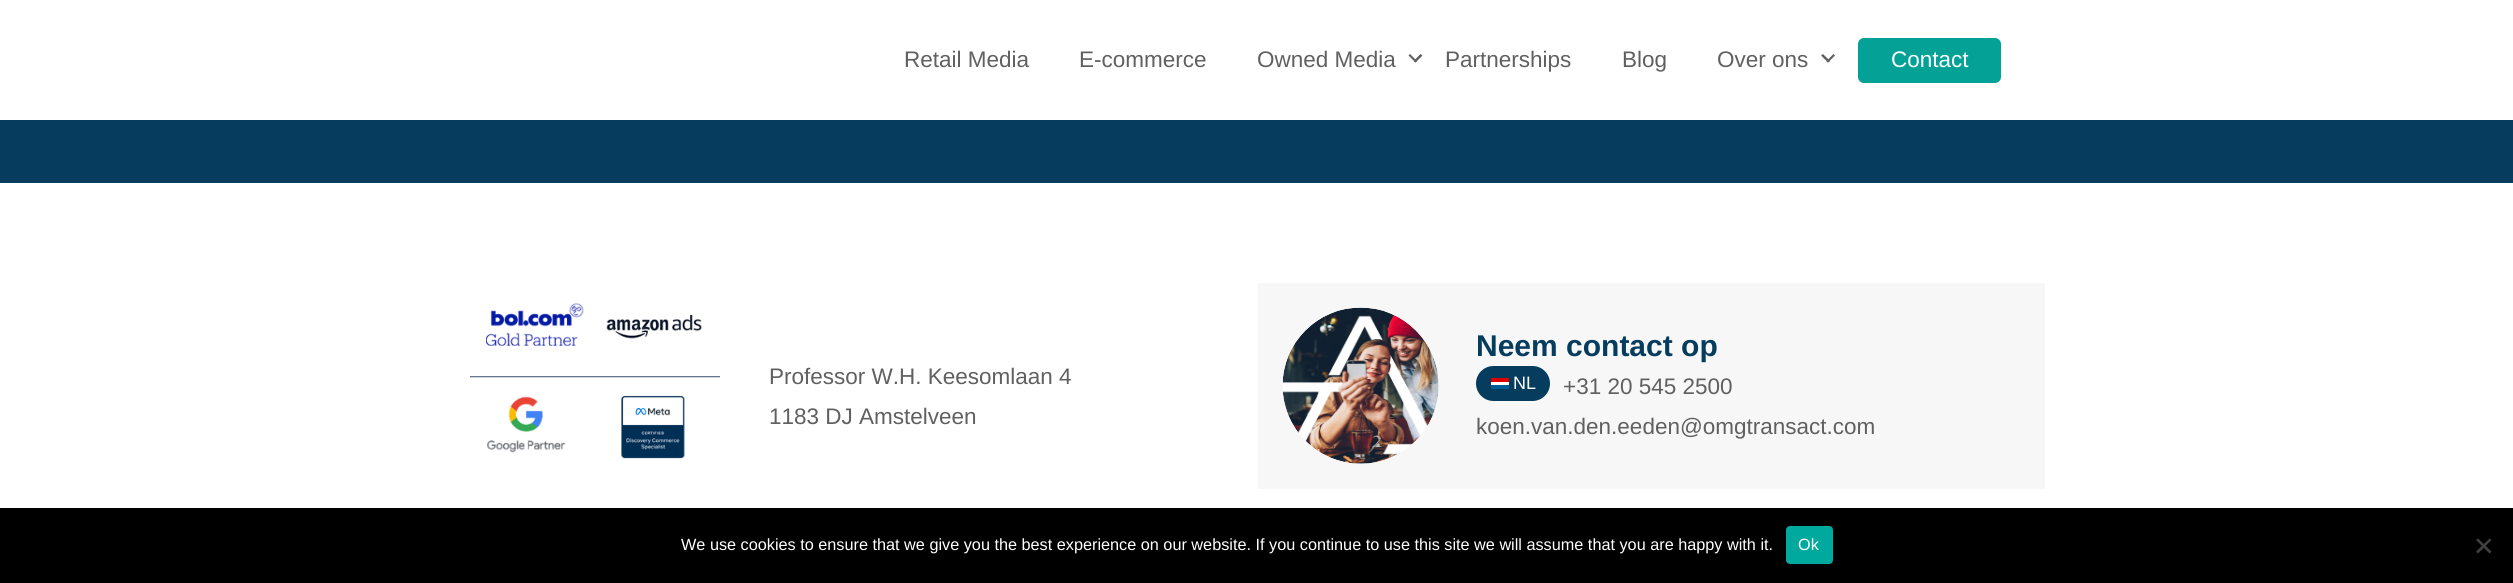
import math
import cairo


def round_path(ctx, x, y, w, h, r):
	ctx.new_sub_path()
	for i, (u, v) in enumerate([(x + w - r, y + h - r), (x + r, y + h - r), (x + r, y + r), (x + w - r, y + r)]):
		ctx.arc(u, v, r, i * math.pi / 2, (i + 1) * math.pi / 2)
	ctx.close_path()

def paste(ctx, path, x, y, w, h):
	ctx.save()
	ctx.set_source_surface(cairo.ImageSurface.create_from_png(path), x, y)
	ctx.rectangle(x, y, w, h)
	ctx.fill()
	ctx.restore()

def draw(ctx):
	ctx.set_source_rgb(1, 1, 1)
	ctx.paint()
	ctx.select_font_face('Liberation Sans')
	ctx.set_font_size(22.5)
	ctx.set_source_rgb(0.376, 0.376, 0.376)
	for x, y, s in [
		(904, 67, 'Retail Media'),
		(1079, 67, 'E-commerce'),
		(1257, 67, 'Owned Media'),
	]:
		ctx.move_to(x, y)
		ctx.show_text(s)
	ctx.new_path()
	ctx.move_to(1420.5, 54)
	ctx.line_to(1422.5, 55.5)
	ctx.line_to(1415.5, 62.5)
	ctx.line_to(1413.5, 61)
	ctx.close_path()
	ctx.fill()
	ctx.new_path()
	ctx.move_to(1410, 54)
	ctx.line_to(1417, 61)
	ctx.line_to(1415.5, 62.5)
	ctx.line_to(1408.5, 55.5)
	ctx.close_path()
	ctx.fill()
	for x, y, s in [
		(1445, 67, 'Partnerships'),
		(1622, 67, 'Blog'),
		(1717, 67, 'Over ons'),
	]:
		ctx.move_to(x, y)
		ctx.show_text(s)
	ctx.new_path()
	ctx.move_to(1833.5, 54)
	ctx.line_to(1835, 55.5)
	ctx.line_to(1828, 62.5)
	ctx.line_to(1826.5, 61)
	ctx.close_path()
	ctx.fill()
	ctx.new_path()
	ctx.move_to(1823, 54)
	ctx.line_to(1830, 61)
	ctx.line_to(1828, 62.5)
	ctx.line_to(1821, 55.5)
	ctx.close_path()
	ctx.fill()
	ctx.set_source_rgb(0.012, 0.631, 0.588)
	round_path(ctx, 1858, 38, 143, 45, 6)
	ctx.fill()
	ctx.set_source_rgb(1, 1, 1)
	ctx.move_to(1891, 67)
	ctx.show_text('Contact')
	ctx.set_source_rgb(0.027, 0.239, 0.369)
	ctx.rectangle(0, 120, 2513, 63)
	ctx.fill()
	paste(ctx, 'media/1.png', 470, 303, 250, 156)
	ctx.set_source_rgb(0.376, 0.376, 0.376)
	ctx.move_to(769, 384)
	ctx.show_text('Professor W.H. Keesomlaan 4')
	ctx.move_to(769, 424)
	ctx.show_text('1183 DJ Amstelveen')
	ctx.set_source_rgb(0.965, 0.965, 0.965)
	ctx.rectangle(1258, 283, 787, 206)
	ctx.fill()
	paste(ctx, 'media/2.png', 1282, 307, 157, 157)
	ctx.select_font_face('Liberation Sans', cairo.FONT_SLANT_NORMAL, cairo.FONT_WEIGHT_BOLD)
	ctx.set_font_size(30)
	ctx.set_source_rgb(0.027, 0.239, 0.369)
	ctx.move_to(1476, 356)
	ctx.show_text('Neem contact op')
	round_path(ctx, 1476, 366, 74, 35, 17.5)
	ctx.fill()
	ctx.set_source_rgb(1, 1, 1)
	ctx.rectangle(1491, 382, 18, 3)
	ctx.fill()
	ctx.set_source_rgb(0.875, 0, 0)
	ctx.rectangle(1491, 378, 18, 4)
	ctx.fill()
	ctx.set_source_rgb(0, 0.365, 0.584)
	ctx.rectangle(1491, 385, 18, 4)
	ctx.fill()
	ctx.select_font_face('Liberation Sans')
	ctx.set_font_size(18)
	ctx.set_source_rgb(1, 1, 1)
	ctx.move_to(1513, 389)
	ctx.show_text('NL')
	ctx.set_font_size(22.5)
	ctx.set_source_rgb(0.376, 0.376, 0.376)
	ctx.move_to(1563, 394)
	ctx.show_text('+31 20 545 2500')
	ctx.move_to(1476, 434)
	ctx.show_text('koen.van.den.eeden@omgtransact.com')
	ctx.set_source_rgb(0, 0, 0)
	ctx.rectangle(0, 508, 2513, 75)
	ctx.fill()
	ctx.set_font_size(16.25)
	ctx.set_source_rgb(1, 1, 1)
	ctx.move_to(681, 550)
	ctx.show_text('We use cookies to ensure that we give you the best experience on our website. If you continue to use this site we will assume that you are happy with it.')
	ctx.set_source_rgb(0, 0.663, 0.616)
	round_path(ctx, 1786, 526, 47, 38, 4)
	ctx.fill()
	ctx.set_source_rgb(1, 1, 1)
	ctx.move_to(1798, 550)
	ctx.show_text('Ok')
	ctx.set_source_rgb(0.251, 0.251, 0.251)
	ctx.new_path()
	ctx.move_to(2489.5, 538.5)
	ctx.line_to(2491.5, 540)
	ctx.line_to(2478, 553.5)
	ctx.line_to(2476, 551.5)
	ctx.close_path()
	ctx.fill()
	ctx.new_path()
	ctx.move_to(2476, 540)
	ctx.line_to(2478, 538.5)
	ctx.line_to(2491.5, 551.5)
	ctx.line_to(2489.5, 553.5)
	ctx.close_path()
	ctx.fill()


surface = cairo.ImageSurface(cairo.FORMAT_RGB24, 2513, 583)
ctx = cairo.Context(surface)
options = cairo.FontOptions()
options.set_hint_metrics(cairo.HINT_METRICS_OFF)
options.set_hint_style(cairo.HINT_STYLE_NONE)
ctx.set_font_options(options)
ctx.set_miter_limit(4)
draw(ctx)
surface.write_to_png('image.png')
